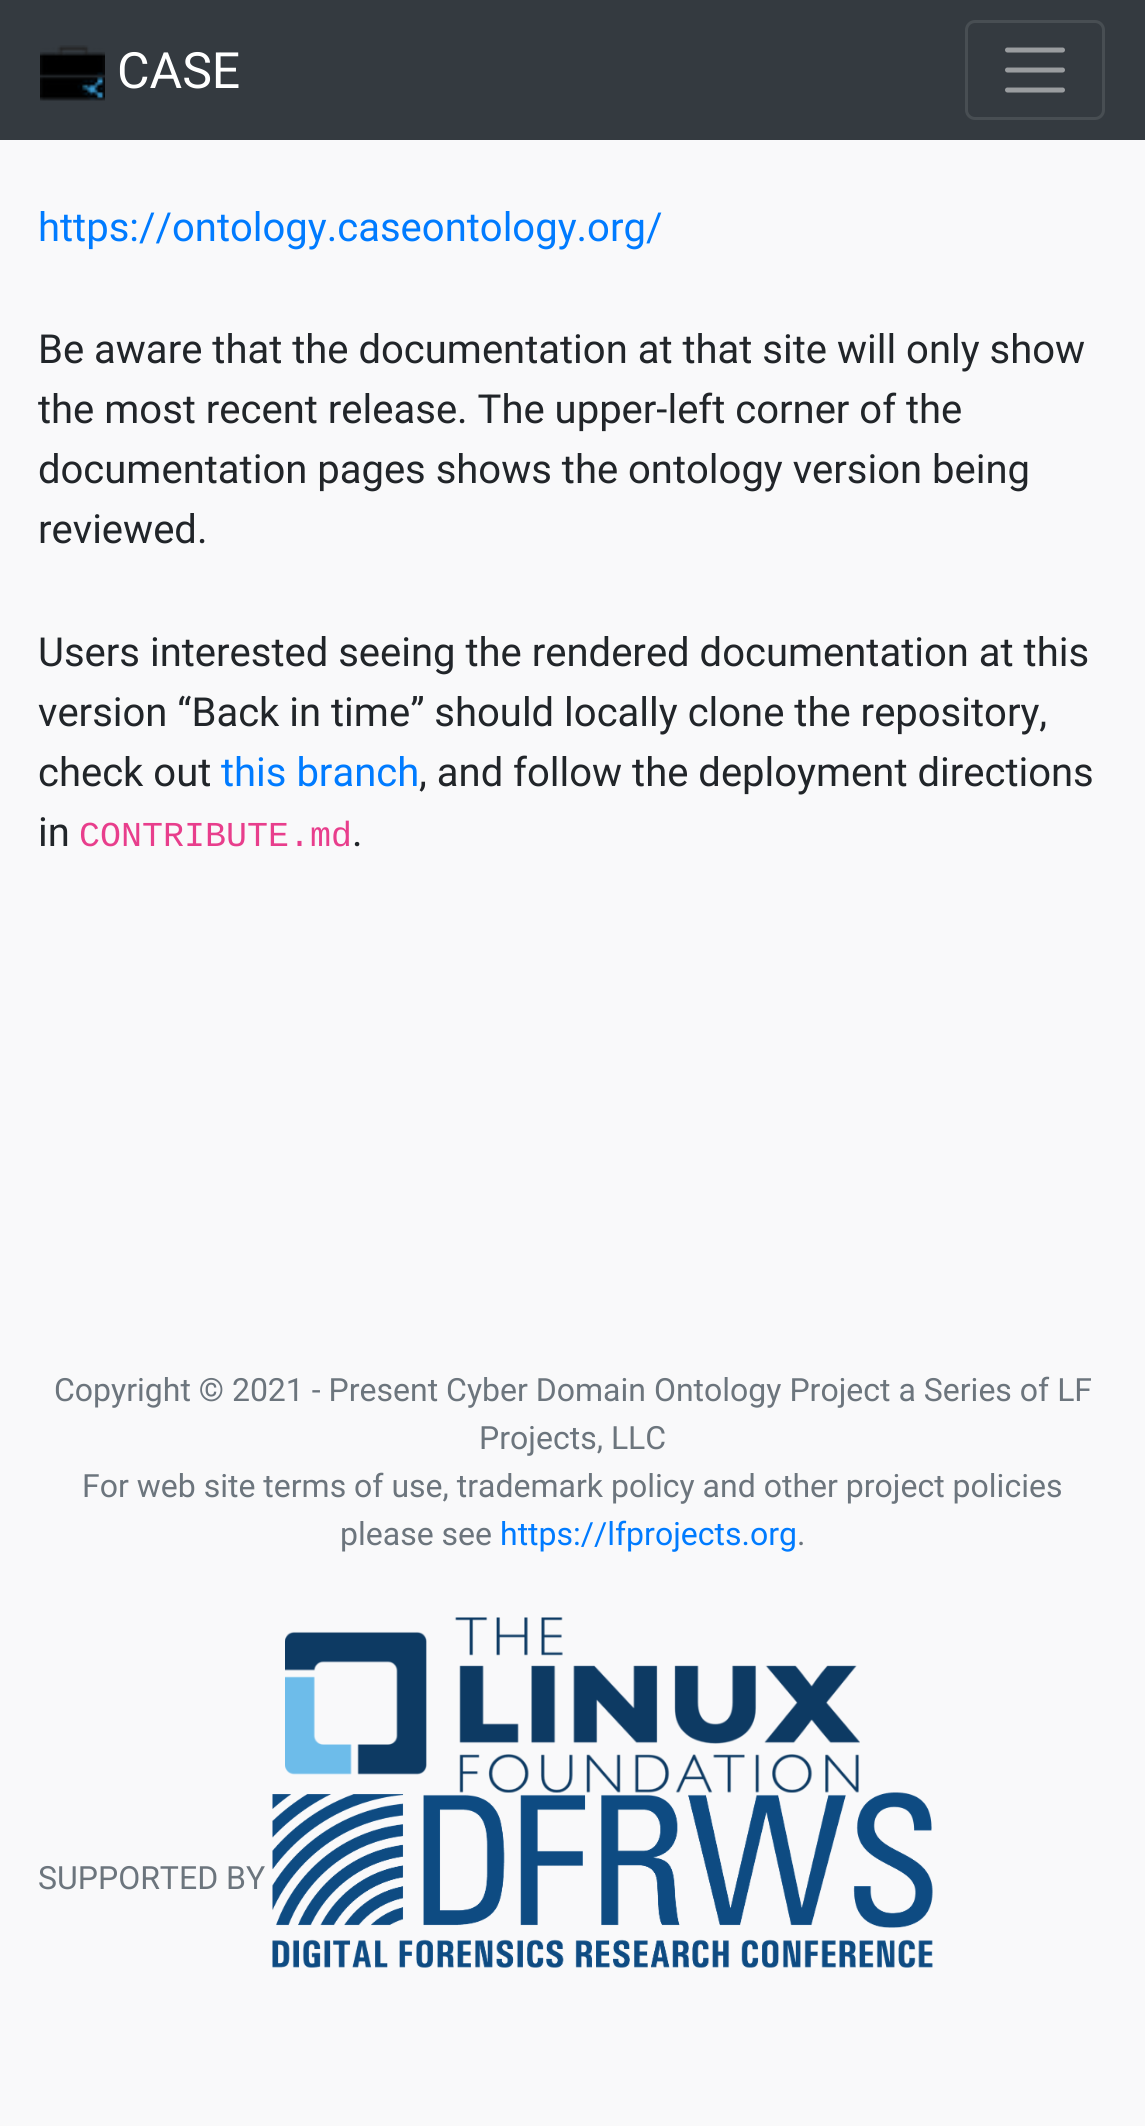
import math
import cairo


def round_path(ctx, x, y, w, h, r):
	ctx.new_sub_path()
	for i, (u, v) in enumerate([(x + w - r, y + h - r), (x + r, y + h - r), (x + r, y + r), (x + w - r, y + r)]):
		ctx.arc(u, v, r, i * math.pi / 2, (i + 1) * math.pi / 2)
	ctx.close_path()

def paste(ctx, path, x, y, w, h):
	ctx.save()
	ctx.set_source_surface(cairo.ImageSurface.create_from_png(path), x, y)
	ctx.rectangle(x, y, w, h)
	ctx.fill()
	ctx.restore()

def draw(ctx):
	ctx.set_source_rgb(0.973, 0.976, 0.98)
	ctx.paint()
	ctx.set_source_rgb(0.204, 0.227, 0.251)
	ctx.rectangle(0, 0, 1145, 140)
	ctx.fill()
	paste(ctx, 'media/1.png', 40, 45, 65, 56)
	ctx.select_font_face('Roboto')
	ctx.set_font_size(50)
	ctx.set_source_rgb(1, 1, 1)
	ctx.move_to(117, 88)
	ctx.show_text('CASE')
	round_path(ctx, 966.5, 21.5, 137, 97, 8.5)
	ctx.set_source_rgb(0.282, 0.306, 0.325)
	ctx.set_line_width(3)
	ctx.stroke()
	ctx.new_path()
	ctx.move_to(1007.5, 50)
	ctx.line_to(1062.5, 50)
	ctx.move_to(1007.5, 70)
	ctx.line_to(1062.5, 70)
	ctx.move_to(1007.5, 90)
	ctx.line_to(1062.5, 90)
	ctx.set_source_rgb(0.604, 0.616, 0.627)
	ctx.set_line_width(5)
	ctx.set_line_cap(cairo.LINE_CAP_ROUND)
	ctx.stroke()
	ctx.set_font_size(40)
	ctx.set_source_rgb(0, 0.482, 1)
	ctx.move_to(38, 241)
	ctx.show_text('https://ontology.caseontology.org/')
	ctx.set_source_rgb(0.129, 0.145, 0.161)
	for x, y, s in [
		(38, 363, 'Be aware that the documentation at that site will only show'),
		(38, 423, 'the most recent release. The upper-left corner of the'),
		(38, 483, 'documentation pages shows the ontology version being'),
		(38, 543, 'reviewed.'),
		(38, 666, 'Users interested seeing the rendered documentation at this'),
		(38, 726, 'version “Back in time” should locally clone the repository,'),
		(38, 786, 'check out'),
	]:
		ctx.move_to(x, y)
		ctx.show_text(s)
	ctx.set_source_rgb(0, 0.482, 1)
	ctx.move_to(221, 786)
	ctx.show_text('this branch')
	ctx.set_source_rgb(0.129, 0.145, 0.161)
	ctx.move_to(419, 786)
	ctx.show_text(', and follow the deployment directions')
	ctx.move_to(38, 846)
	ctx.show_text('in')
	ctx.select_font_face('Liberation Mono')
	ctx.set_font_size(35)
	ctx.set_source_rgb(0.91, 0.243, 0.549)
	ctx.move_to(79, 846)
	ctx.show_text('CONTRIBUTE.md')
	ctx.select_font_face('Roboto')
	ctx.set_font_size(40)
	ctx.set_source_rgb(0.129, 0.145, 0.161)
	ctx.move_to(352, 846)
	ctx.show_text('.')
	ctx.set_font_size(32)
	ctx.set_source_rgb(0.424, 0.459, 0.49)
	for x, y, s in [
		(54, 1401, 'Copyright © 2021 - Present Cyber Domain Ontology Project a Series of LF'),
		(479, 1449, 'Projects, LLC'),
		(82, 1497, 'For web site terms of use, trademark policy and other project policies'),
		(340, 1545, 'please see'),
	]:
		ctx.move_to(x, y)
		ctx.show_text(s)
	ctx.set_source_rgb(0, 0.482, 1)
	ctx.move_to(500, 1545)
	ctx.show_text('https://lfprojects.org')
	ctx.set_source_rgb(0.424, 0.459, 0.49)
	ctx.move_to(797, 1545)
	ctx.show_text('.')
	paste(ctx, 'media/2.png', 285, 1617, 575, 176)
	ctx.move_to(38, 1889)
	ctx.show_text('SUPPORTED BY')
	paste(ctx, 'media/3.png', 272, 1792, 661, 176)


surface = cairo.ImageSurface(cairo.FORMAT_RGB24, 1145, 2126)
ctx = cairo.Context(surface)
options = cairo.FontOptions()
options.set_hint_metrics(cairo.HINT_METRICS_OFF)
options.set_hint_style(cairo.HINT_STYLE_NONE)
ctx.set_font_options(options)
ctx.set_miter_limit(4)
draw(ctx)
surface.write_to_png('image.png')
